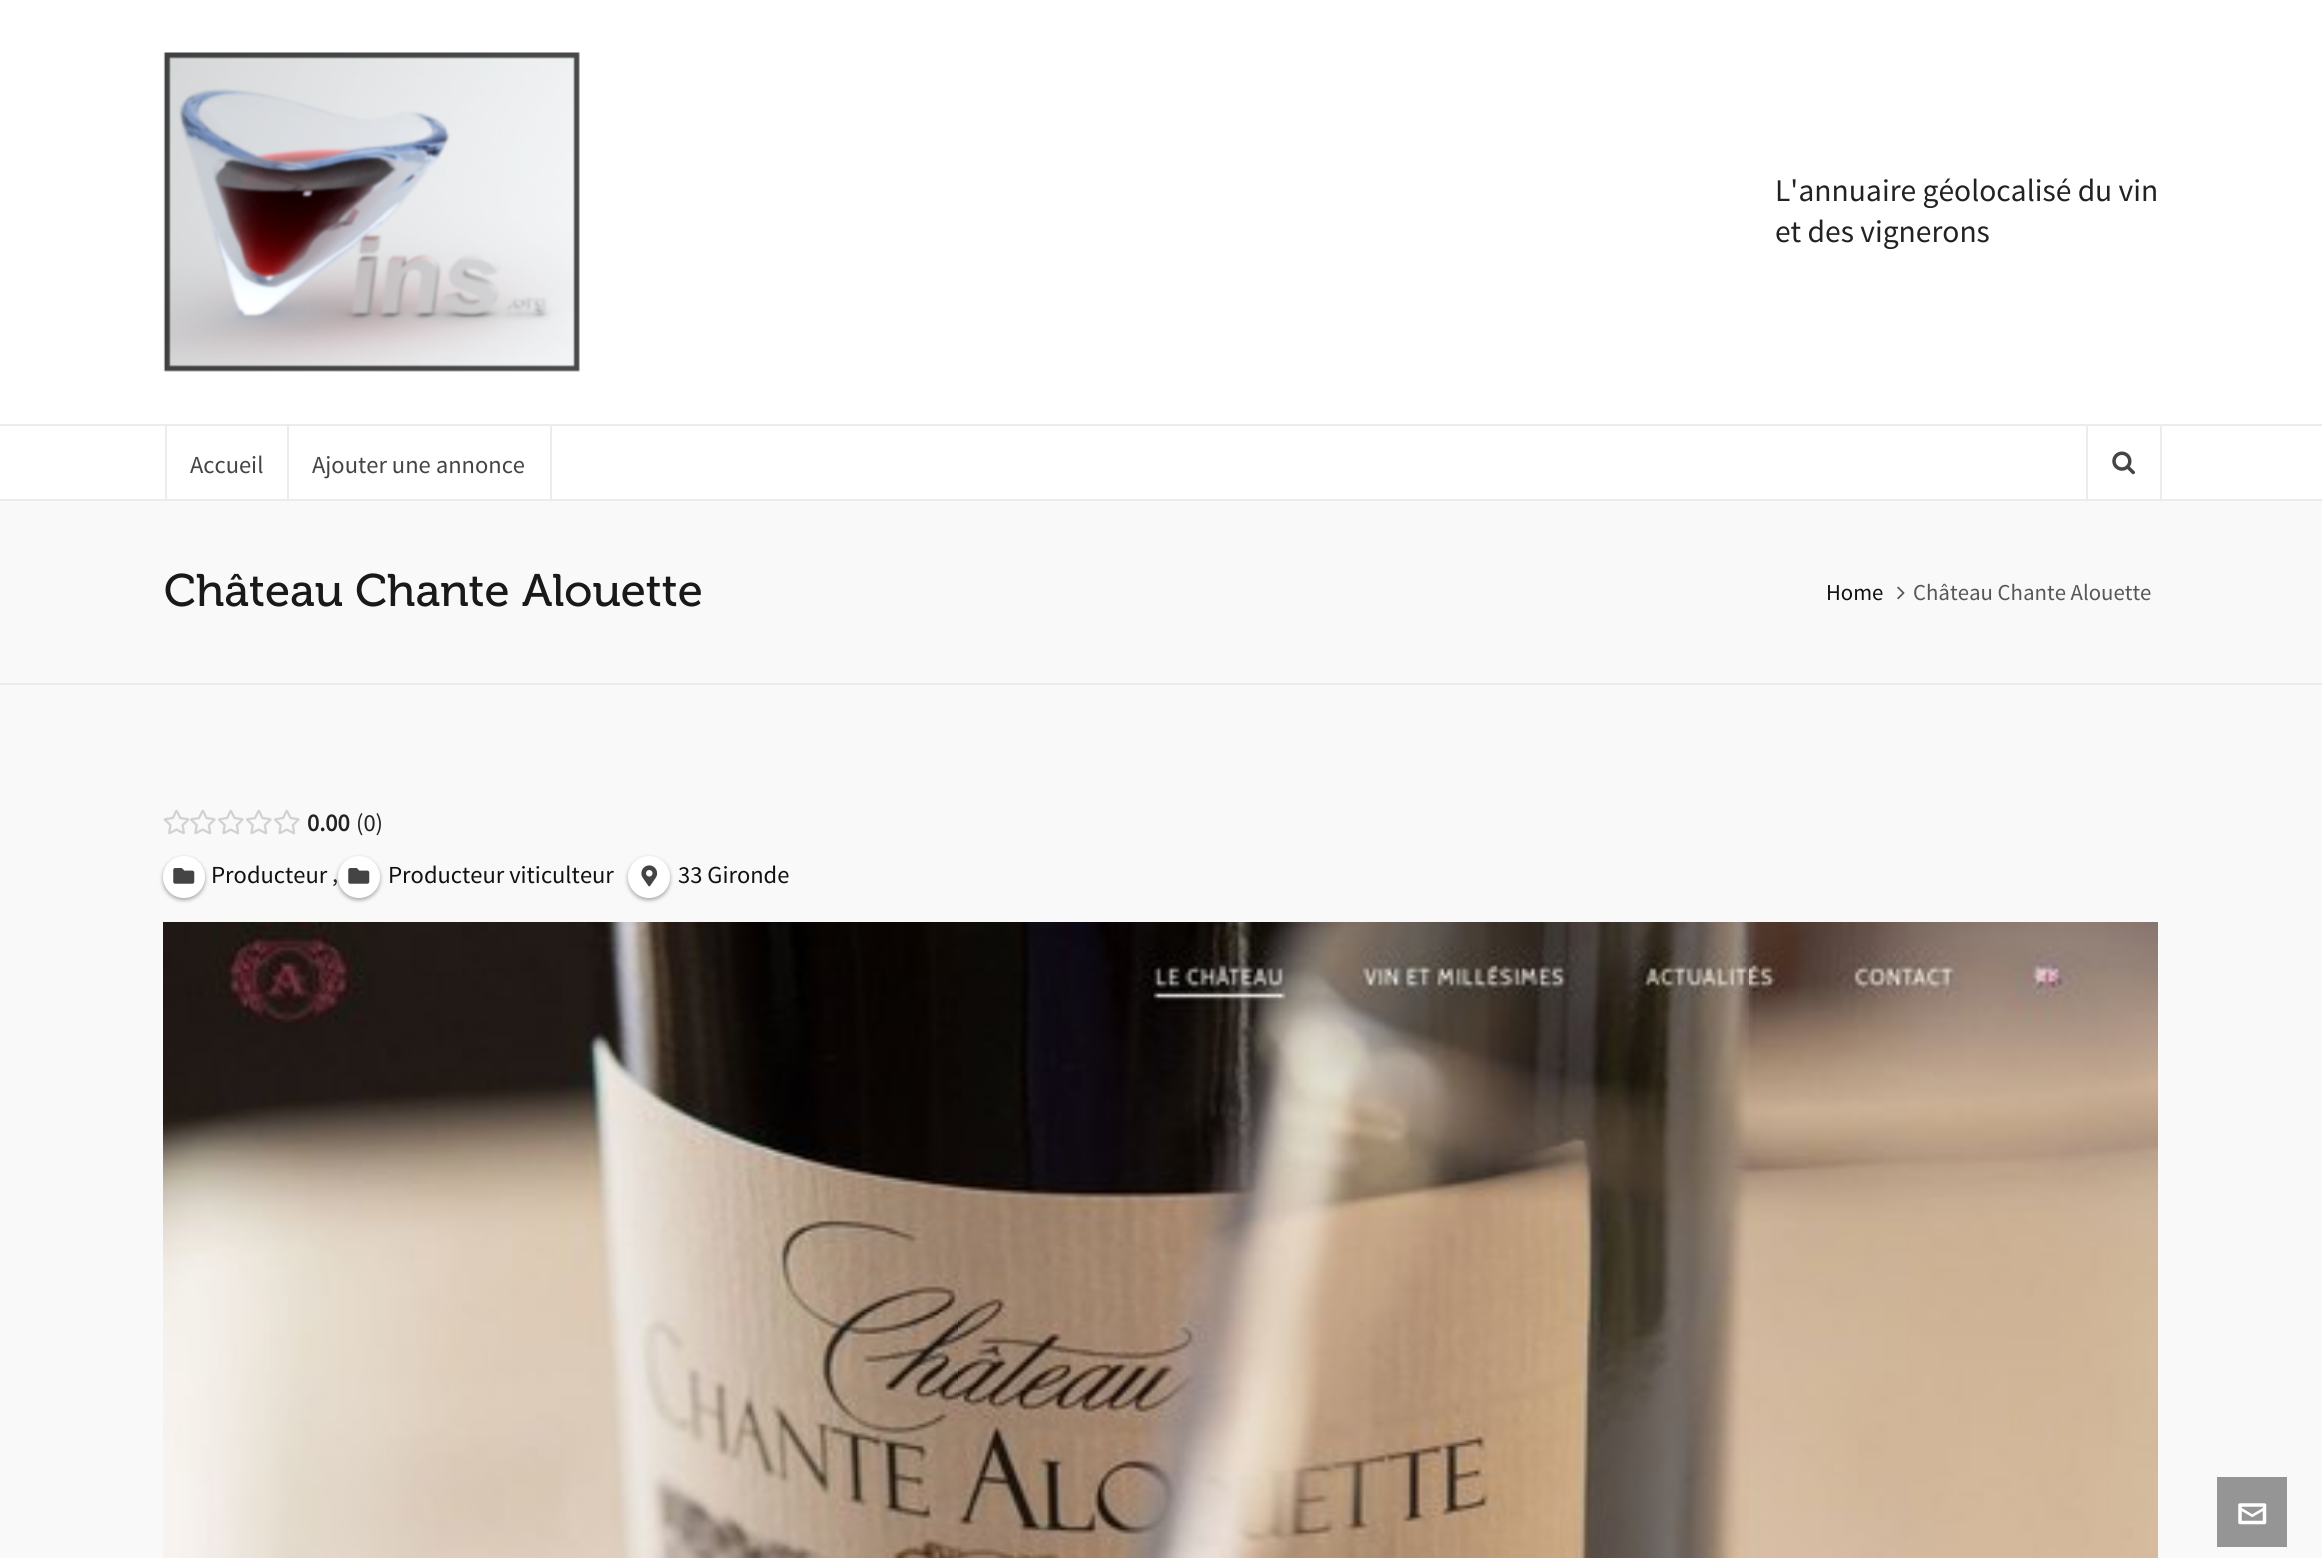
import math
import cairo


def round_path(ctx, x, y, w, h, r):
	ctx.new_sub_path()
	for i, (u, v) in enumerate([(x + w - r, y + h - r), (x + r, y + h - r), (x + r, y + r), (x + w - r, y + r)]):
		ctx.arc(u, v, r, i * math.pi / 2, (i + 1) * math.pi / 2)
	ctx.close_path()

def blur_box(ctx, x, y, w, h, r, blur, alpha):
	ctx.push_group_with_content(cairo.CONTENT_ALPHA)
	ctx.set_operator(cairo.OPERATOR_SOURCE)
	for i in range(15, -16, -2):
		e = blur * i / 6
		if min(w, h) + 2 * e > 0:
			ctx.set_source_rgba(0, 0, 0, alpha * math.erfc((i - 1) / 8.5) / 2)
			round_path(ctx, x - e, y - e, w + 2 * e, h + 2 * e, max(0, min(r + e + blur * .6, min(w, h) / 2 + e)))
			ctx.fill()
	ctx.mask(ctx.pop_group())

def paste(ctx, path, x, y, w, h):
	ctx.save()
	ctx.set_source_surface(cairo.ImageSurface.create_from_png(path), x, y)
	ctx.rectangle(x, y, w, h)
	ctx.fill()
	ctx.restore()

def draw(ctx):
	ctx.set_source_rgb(0.976, 0.976, 0.976)
	ctx.paint()
	ctx.set_source_rgb(1, 1, 1)
	ctx.rectangle(0, 0, 2322, 499)
	ctx.fill()
	ctx.set_source_rgb(0.922, 0.922, 0.922)
	ctx.rectangle(0, 499, 2322, 2)
	ctx.fill()
	paste(ctx, 'media/1.png', 163, 52, 417, 320)
	ctx.select_font_face('Source Sans Pro')
	ctx.set_font_size(31.5)
	ctx.set_source_rgb(0.133, 0.133, 0.133)
	ctx.move_to(1775, 201)
	ctx.show_text('L\'annuaire géolocalisé du vin')
	ctx.move_to(1775, 242)
	ctx.show_text('et des vignerons')
	ctx.set_source_rgb(0.922, 0.922, 0.922)
	ctx.rectangle(0, 424, 2322, 2)
	ctx.rectangle(287, 425, 2, 74)
	ctx.rectangle(165, 425, 2, 74)
	ctx.fill()
	ctx.set_font_size(24.5)
	ctx.set_source_rgb(0.267, 0.267, 0.267)
	ctx.move_to(190, 473)
	ctx.show_text('Accueil')
	ctx.set_source_rgb(0.922, 0.922, 0.922)
	ctx.rectangle(550, 425, 2, 74)
	ctx.fill()
	ctx.set_source_rgb(0.267, 0.267, 0.267)
	ctx.move_to(312, 473)
	ctx.show_text('Ajouter une annonce')
	ctx.set_source_rgb(0.922, 0.922, 0.922)
	ctx.rectangle(2160, 425, 2, 74)
	ctx.fill()
	ctx.rectangle(2086, 425, 2, 74)
	ctx.fill()
	paste(ctx, 'media/2.png', 2112, 451, 23, 24)
	ctx.rectangle(0, 683, 2322, 2)
	ctx.fill()
	ctx.select_font_face('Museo')
	ctx.set_font_size(45.5)
	ctx.set_source_rgb(0.098, 0.098, 0.098)
	ctx.move_to(164, 606)
	ctx.show_text('Château Chante Alouette')
	ctx.select_font_face('Source Sans Pro')
	ctx.set_font_size(22.75)
	ctx.set_source_rgb(0.067, 0.067, 0.067)
	ctx.move_to(1826, 600)
	ctx.show_text('Home')
	paste(ctx, 'media/3.png', 1897, 586, 8, 14)
	ctx.set_source_rgb(0.341, 0.341, 0.341)
	ctx.move_to(1913, 600)
	ctx.show_text('Château Chante Alouette')
	paste(ctx, 'media/4.png', 163, 809, 27, 26)
	paste(ctx, 'media/5.png', 190, 809, 26, 26)
	paste(ctx, 'media/5.png', 218, 809, 26, 26)
	paste(ctx, 'media/5.png', 246, 809, 26, 26)
	paste(ctx, 'media/5.png', 274, 809, 26, 26)
	ctx.select_font_face('Source Sans Pro', cairo.FONT_SLANT_NORMAL, cairo.FONT_WEIGHT_BOLD)
	ctx.set_font_size(24.5)
	ctx.set_source_rgb(0.133, 0.133, 0.133)
	ctx.move_to(307, 831)
	ctx.show_text('0.00')
	ctx.select_font_face('Source Sans Pro')
	ctx.move_to(356, 831)
	ctx.show_text('(0)')
	ctx.set_source_rgb(0, 0, 0)
	blur_box(ctx, 163, 858, 42, 42, 21, 2, 0.24)
	blur_box(ctx, 163, 858, 42, 42, 21, 2.5, 0.12)
	ctx.set_source_rgb(1, 1, 1)
	ctx.arc(184, 877, 21, 0, 2 * math.pi)
	ctx.fill()
	paste(ctx, 'media/6.png', 173, 868, 22, 16)
	ctx.set_source_rgb(0.067, 0.067, 0.067)
	ctx.move_to(211, 883)
	ctx.show_text('Producteur')
	ctx.set_source_rgb(0.133, 0.133, 0.133)
	ctx.move_to(332, 882)
	ctx.show_text(',')
	ctx.set_source_rgb(0, 0, 0)
	blur_box(ctx, 338, 858, 42, 42, 21, 2, 0.24)
	blur_box(ctx, 338, 858, 42, 42, 21, 2.5, 0.12)
	ctx.set_source_rgb(1, 1, 1)
	ctx.arc(359, 877, 21, 0, 2 * math.pi)
	ctx.fill()
	paste(ctx, 'media/6.png', 348, 868, 22, 16)
	ctx.set_source_rgb(0.067, 0.067, 0.067)
	ctx.move_to(388, 883)
	ctx.show_text('Producteur viticulteur')
	ctx.set_source_rgb(0, 0, 0)
	blur_box(ctx, 628, 858, 42, 42, 21, 2, 0.24)
	blur_box(ctx, 628, 858, 42, 42, 21, 2.5, 0.12)
	ctx.set_source_rgb(1, 1, 1)
	ctx.arc(649, 877, 21, 0, 2 * math.pi)
	ctx.fill()
	paste(ctx, 'media/7.png', 641, 865, 17, 22)
	ctx.set_source_rgb(0.067, 0.067, 0.067)
	ctx.move_to(678, 883)
	ctx.show_text('33 Gironde')
	paste(ctx, 'media/8.png', 163, 922, 1995, 636)
	ctx.set_source_rgb(0.584, 0.584, 0.584)
	ctx.rectangle(2217, 1477, 70, 70)
	ctx.fill()
	paste(ctx, 'media/9.png', 2238, 1503, 29, 22)


surface = cairo.ImageSurface(cairo.FORMAT_RGB24, 2322, 1558)
ctx = cairo.Context(surface)
options = cairo.FontOptions()
options.set_hint_metrics(cairo.HINT_METRICS_OFF)
options.set_hint_style(cairo.HINT_STYLE_NONE)
ctx.set_font_options(options)
ctx.set_miter_limit(4)
draw(ctx)
surface.write_to_png('image.png')
